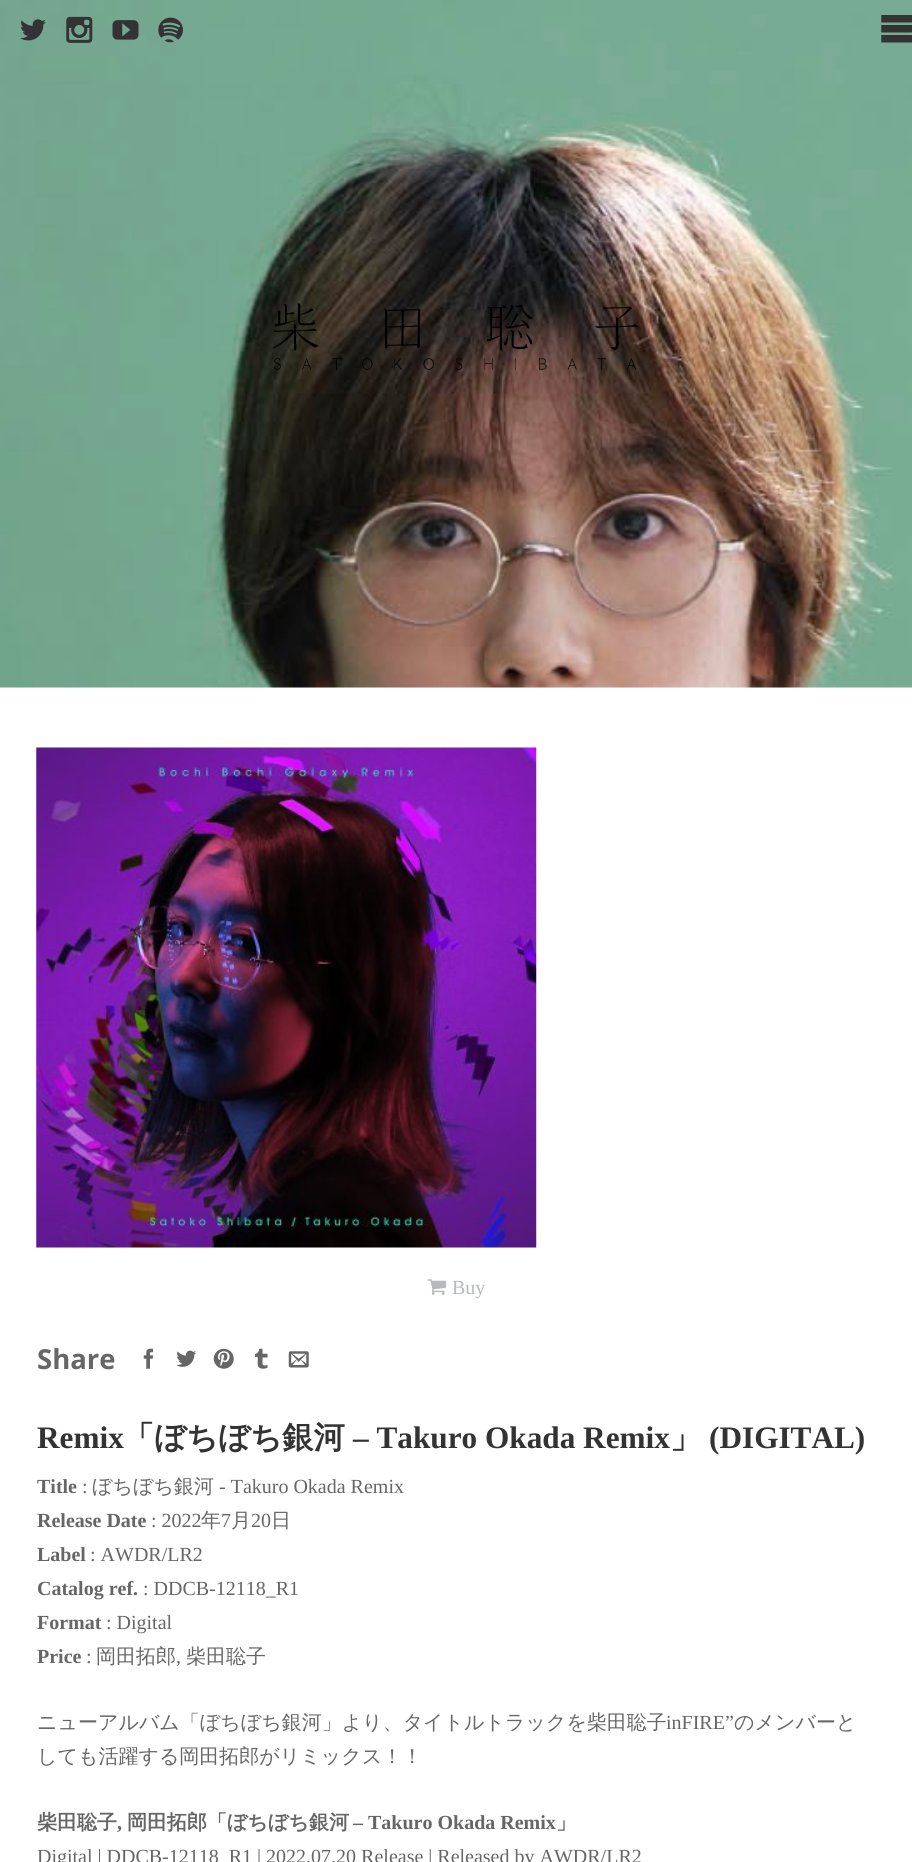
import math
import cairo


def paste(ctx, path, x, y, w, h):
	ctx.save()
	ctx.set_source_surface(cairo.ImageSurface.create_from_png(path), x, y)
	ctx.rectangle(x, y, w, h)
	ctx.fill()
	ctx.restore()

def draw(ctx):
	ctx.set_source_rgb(1, 1, 1)
	ctx.paint()
	paste(ctx, 'media/2.png', 0, 0, 912, 688)
	paste(ctx, 'media/1.png', 881, 15, 31, 28)
	paste(ctx, 'media/3.png', 20, 19, 26, 22)
	paste(ctx, 'media/4.png', 66, 16, 27, 27)
	paste(ctx, 'media/5.png', 112, 20, 27, 20)
	paste(ctx, 'media/6.png', 158, 17, 25, 26)
	paste(ctx, 'media/7.png', 272, 303, 366, 67)
	paste(ctx, 'media/8.png', 36, 747, 501, 501)
	paste(ctx, 'media/9.png', 427, 1279, 20, 16)
	ctx.select_font_face('Liberation Serif')
	ctx.set_font_size(20)
	ctx.set_source_rgb(0.71, 0.733, 0.737)
	ctx.move_to(452, 1294)
	ctx.show_text('Buy')
	ctx.select_font_face('Open Sans', cairo.FONT_SLANT_NORMAL, cairo.FONT_WEIGHT_BOLD)
	ctx.set_font_size(27.5)
	ctx.set_source_rgb(0.4, 0.4, 0.4)
	ctx.move_to(37, 1369)
	ctx.show_text('Share')
	paste(ctx, 'media/10.png', 143, 1348, 11, 21)
	paste(ctx, 'media/11.png', 176, 1350, 21, 17)
	paste(ctx, 'media/12.png', 213, 1348, 21, 21)
	paste(ctx, 'media/13.png', 255, 1348, 13, 21)
	paste(ctx, 'media/14.png', 288, 1351, 21, 17)
	ctx.select_font_face('Liberation Serif', cairo.FONT_SLANT_NORMAL, cairo.FONT_WEIGHT_BOLD)
	ctx.set_font_size(31.25)
	ctx.set_source_rgb(0.2, 0.2, 0.2)
	ctx.move_to(37, 1448)
	ctx.show_text('Remix')
	ctx.select_font_face('WenQuanYi Zen Hei', cairo.FONT_SLANT_NORMAL, cairo.FONT_WEIGHT_BOLD)
	ctx.move_to(123, 1448)
	ctx.show_text('「ぼちぼち銀河')
	ctx.select_font_face('Liberation Serif', cairo.FONT_SLANT_NORMAL, cairo.FONT_WEIGHT_BOLD)
	ctx.move_to(353, 1448)
	ctx.show_text('– Takuro Okada Remix')
	ctx.select_font_face('WenQuanYi Zen Hei', cairo.FONT_SLANT_NORMAL, cairo.FONT_WEIGHT_BOLD)
	ctx.move_to(670, 1448)
	ctx.show_text('」')
	ctx.select_font_face('Liberation Serif', cairo.FONT_SLANT_NORMAL, cairo.FONT_WEIGHT_BOLD)
	ctx.move_to(709, 1448)
	ctx.show_text('(DIGITAL)')
	ctx.set_font_size(20)
	ctx.set_source_rgb(0.4, 0.4, 0.4)
	ctx.move_to(37, 1493)
	ctx.show_text('Title')
	ctx.select_font_face('Liberation Serif')
	ctx.move_to(82, 1493)
	ctx.show_text(':')
	ctx.select_font_face('WenQuanYi Zen Hei Medium')
	ctx.move_to(92, 1493)
	ctx.show_text('ぼちぼち銀河')
	ctx.select_font_face('Liberation Serif')
	ctx.move_to(219, 1493)
	ctx.show_text('- Takuro Okada Remix')
	ctx.select_font_face('Liberation Serif', cairo.FONT_SLANT_NORMAL, cairo.FONT_WEIGHT_BOLD)
	ctx.move_to(37, 1527)
	ctx.show_text('Release Date')
	ctx.select_font_face('Liberation Serif')
	ctx.move_to(151, 1527)
	ctx.show_text(': 2022')
	ctx.select_font_face('WenQuanYi Zen Hei Medium')
	ctx.move_to(201, 1527)
	ctx.show_text('年')
	ctx.select_font_face('Liberation Serif')
	ctx.move_to(221, 1527)
	ctx.show_text('7')
	ctx.select_font_face('WenQuanYi Zen Hei Medium')
	ctx.move_to(231, 1527)
	ctx.show_text('月')
	ctx.select_font_face('Liberation Serif')
	ctx.move_to(251, 1527)
	ctx.show_text('20')
	ctx.select_font_face('WenQuanYi Zen Hei Medium')
	ctx.move_to(271, 1527)
	ctx.show_text('日')
	ctx.select_font_face('Liberation Serif', cairo.FONT_SLANT_NORMAL, cairo.FONT_WEIGHT_BOLD)
	ctx.move_to(37, 1561)
	ctx.show_text('Label')
	ctx.select_font_face('Liberation Serif')
	ctx.move_to(90, 1561)
	ctx.show_text(': AWDR/LR2')
	ctx.select_font_face('Liberation Serif', cairo.FONT_SLANT_NORMAL, cairo.FONT_WEIGHT_BOLD)
	ctx.move_to(37, 1595)
	ctx.show_text('Catalog ref.')
	ctx.select_font_face('Liberation Serif')
	ctx.move_to(143, 1595)
	ctx.show_text(': DDCB-12118_R1')
	ctx.select_font_face('Liberation Serif', cairo.FONT_SLANT_NORMAL, cairo.FONT_WEIGHT_BOLD)
	ctx.move_to(37, 1629)
	ctx.show_text('Format')
	ctx.select_font_face('Liberation Serif')
	ctx.move_to(106, 1629)
	ctx.show_text(': Digital')
	ctx.select_font_face('Liberation Serif', cairo.FONT_SLANT_NORMAL, cairo.FONT_WEIGHT_BOLD)
	ctx.move_to(37, 1663)
	ctx.show_text('Price')
	ctx.select_font_face('Liberation Serif')
	ctx.move_to(86, 1663)
	ctx.show_text(':')
	ctx.select_font_face('WenQuanYi Zen Hei Medium')
	ctx.move_to(96, 1663)
	ctx.show_text('岡田拓郎')
	ctx.select_font_face('Liberation Serif')
	ctx.move_to(176, 1663)
	ctx.show_text(',')
	ctx.select_font_face('WenQuanYi Zen Hei Medium')
	ctx.move_to(186, 1663)
	ctx.show_text('柴田聡子')
	ctx.move_to(37, 1729)
	ctx.show_text('ニューアルバム「ぼちぼち銀河」より、タイトルトラックを柴田聡子')
	ctx.select_font_face('Liberation Serif')
	ctx.move_to(666, 1729)
	ctx.show_text('inFIRE”')
	ctx.select_font_face('WenQuanYi Zen Hei Medium')
	ctx.move_to(734, 1729)
	ctx.show_text('のメンバーと')
	ctx.move_to(37, 1763)
	ctx.show_text('しても活躍する岡田拓郎がリミックス！！')
	ctx.select_font_face('WenQuanYi Zen Hei', cairo.FONT_SLANT_NORMAL, cairo.FONT_WEIGHT_BOLD)
	ctx.move_to(37, 1829)
	ctx.show_text('柴田聡子')
	ctx.select_font_face('Liberation Serif', cairo.FONT_SLANT_NORMAL, cairo.FONT_WEIGHT_BOLD)
	ctx.move_to(117, 1829)
	ctx.show_text(',')
	ctx.select_font_face('WenQuanYi Zen Hei', cairo.FONT_SLANT_NORMAL, cairo.FONT_WEIGHT_BOLD)
	ctx.move_to(127, 1829)
	ctx.show_text('岡田拓郎「ぼちぼち銀河')
	ctx.select_font_face('Liberation Serif', cairo.FONT_SLANT_NORMAL, cairo.FONT_WEIGHT_BOLD)
	ctx.move_to(353, 1829)
	ctx.show_text('– Takuro Okada Remix')
	ctx.select_font_face('WenQuanYi Zen Hei', cairo.FONT_SLANT_NORMAL, cairo.FONT_WEIGHT_BOLD)
	ctx.move_to(556, 1829)
	ctx.show_text('」')
	ctx.select_font_face('Liberation Serif')
	ctx.move_to(37, 1863)
	ctx.show_text('Digital | DDCB-12118_R1 | 2022.07.20 Release | Released by AWDR/LR2')


surface = cairo.ImageSurface(cairo.FORMAT_RGB24, 912, 1862)
ctx = cairo.Context(surface)
options = cairo.FontOptions()
options.set_hint_metrics(cairo.HINT_METRICS_OFF)
options.set_hint_style(cairo.HINT_STYLE_NONE)
ctx.set_font_options(options)
ctx.set_miter_limit(4)
draw(ctx)
surface.write_to_png('image.png')
